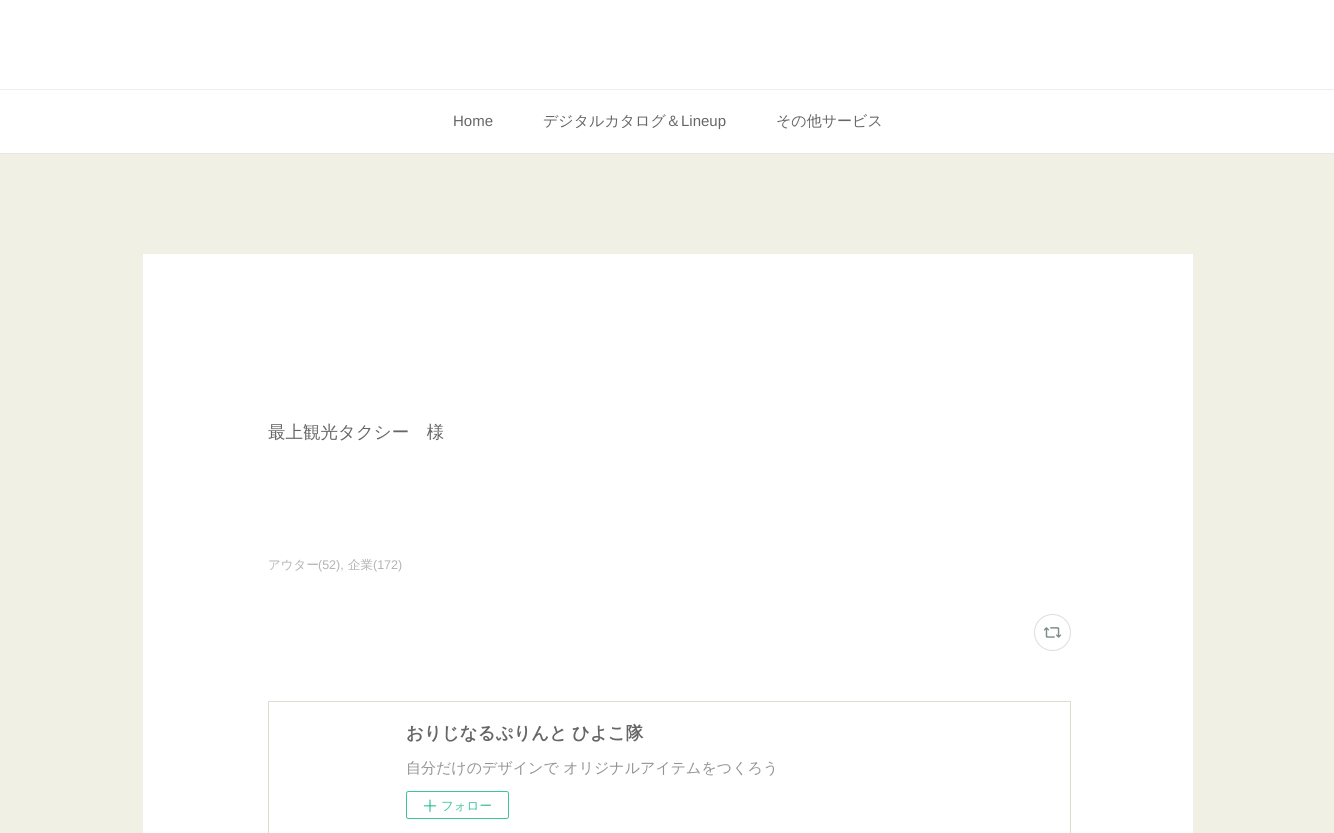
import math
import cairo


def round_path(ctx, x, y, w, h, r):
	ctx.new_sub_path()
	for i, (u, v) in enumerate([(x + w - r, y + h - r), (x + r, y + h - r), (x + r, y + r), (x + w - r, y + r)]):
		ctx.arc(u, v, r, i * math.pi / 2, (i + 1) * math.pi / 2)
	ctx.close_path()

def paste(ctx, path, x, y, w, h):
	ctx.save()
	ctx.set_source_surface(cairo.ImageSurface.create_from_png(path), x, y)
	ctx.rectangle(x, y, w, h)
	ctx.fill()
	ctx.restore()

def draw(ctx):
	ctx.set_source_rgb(0.945, 0.941, 0.898)
	ctx.paint()
	ctx.set_source_rgb(1, 1, 1)
	ctx.rectangle(0, 0, 1334, 89)
	ctx.fill()
	ctx.set_source_rgb(0.933, 0.933, 0.933)
	ctx.rectangle(0, 89, 1334, 1)
	ctx.fill()
	ctx.set_source_rgb(1, 1, 1)
	ctx.rectangle(0, 90, 1334, 63)
	ctx.fill()
	ctx.set_source_rgb(0.902, 0.902, 0.902)
	ctx.rectangle(0, 153, 1334, 1)
	ctx.fill()
	ctx.select_font_face('Liberation Sans')
	ctx.set_font_size(15)
	ctx.set_source_rgb(0.4, 0.4, 0.4)
	ctx.move_to(453, 126)
	ctx.show_text('Home')
	ctx.select_font_face('WenQuanYi Zen Hei Medium')
	ctx.move_to(543, 126)
	ctx.show_text('デジタルカタログ＆')
	ctx.select_font_face('Liberation Sans')
	ctx.move_to(681, 126)
	ctx.show_text('Lineup')
	ctx.select_font_face('WenQuanYi Zen Hei Medium')
	ctx.move_to(776, 126)
	ctx.show_text('その他サービス')
	ctx.set_source_rgb(1, 1, 1)
	ctx.rectangle(143, 254, 1050, 579)
	ctx.fill()
	ctx.set_font_size(17.5)
	ctx.set_source_rgb(0.4, 0.4, 0.4)
	ctx.move_to(268, 438)
	ctx.show_text('最上観光タクシー　様')
	ctx.set_font_size(12.5)
	ctx.set_source_rgb(0.702, 0.702, 0.702)
	ctx.move_to(268, 569)
	ctx.show_text('アウター')
	ctx.select_font_face('Liberation Sans')
	ctx.move_to(318, 569)
	ctx.show_text('(52),')
	ctx.select_font_face('WenQuanYi Zen Hei Medium')
	ctx.move_to(348, 569)
	ctx.show_text('企業')
	ctx.select_font_face('Liberation Sans')
	ctx.move_to(373, 569)
	ctx.show_text('(172)')
	ctx.new_path()
	ctx.arc(1052.5, 632.5, 18, 0, 2 * math.pi)
	ctx.set_source_rgb(0.867, 0.867, 0.867)
	ctx.set_line_width(1)
	ctx.stroke()
	paste(ctx, 'media/1.png', 1043, 627, 19, 11)
	ctx.rectangle(268.5, 701.5, 802, 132)
	ctx.set_source_rgb(0.871, 0.867, 0.804)
	ctx.stroke()
	ctx.select_font_face('WenQuanYi Zen Hei', cairo.FONT_SLANT_NORMAL, cairo.FONT_WEIGHT_BOLD)
	ctx.set_font_size(17.5)
	ctx.set_source_rgb(0.4, 0.4, 0.4)
	ctx.move_to(406, 739)
	ctx.show_text('おりじなるぷりんと')
	ctx.move_to(572, 739)
	ctx.show_text('ひよこ隊')
	ctx.select_font_face('WenQuanYi Zen Hei Medium')
	ctx.set_font_size(15)
	ctx.set_source_rgb(0.58, 0.58, 0.58)
	ctx.move_to(406, 773)
	ctx.show_text('自分だけのデザインで オリジナルアイテムをつくろう')
	round_path(ctx, 406.5, 791.5, 102, 27, 2)
	ctx.set_source_rgb(0.239, 0.769, 0.616)
	ctx.stroke()
	paste(ctx, 'media/2.png', 423, 799, 14, 13)
	ctx.set_font_size(12.5)
	ctx.move_to(441, 810)
	ctx.show_text('フォロー')


surface = cairo.ImageSurface(cairo.FORMAT_RGB24, 1334, 833)
ctx = cairo.Context(surface)
options = cairo.FontOptions()
options.set_hint_metrics(cairo.HINT_METRICS_OFF)
options.set_hint_style(cairo.HINT_STYLE_NONE)
ctx.set_font_options(options)
ctx.set_miter_limit(4)
draw(ctx)
surface.write_to_png('image.png')
